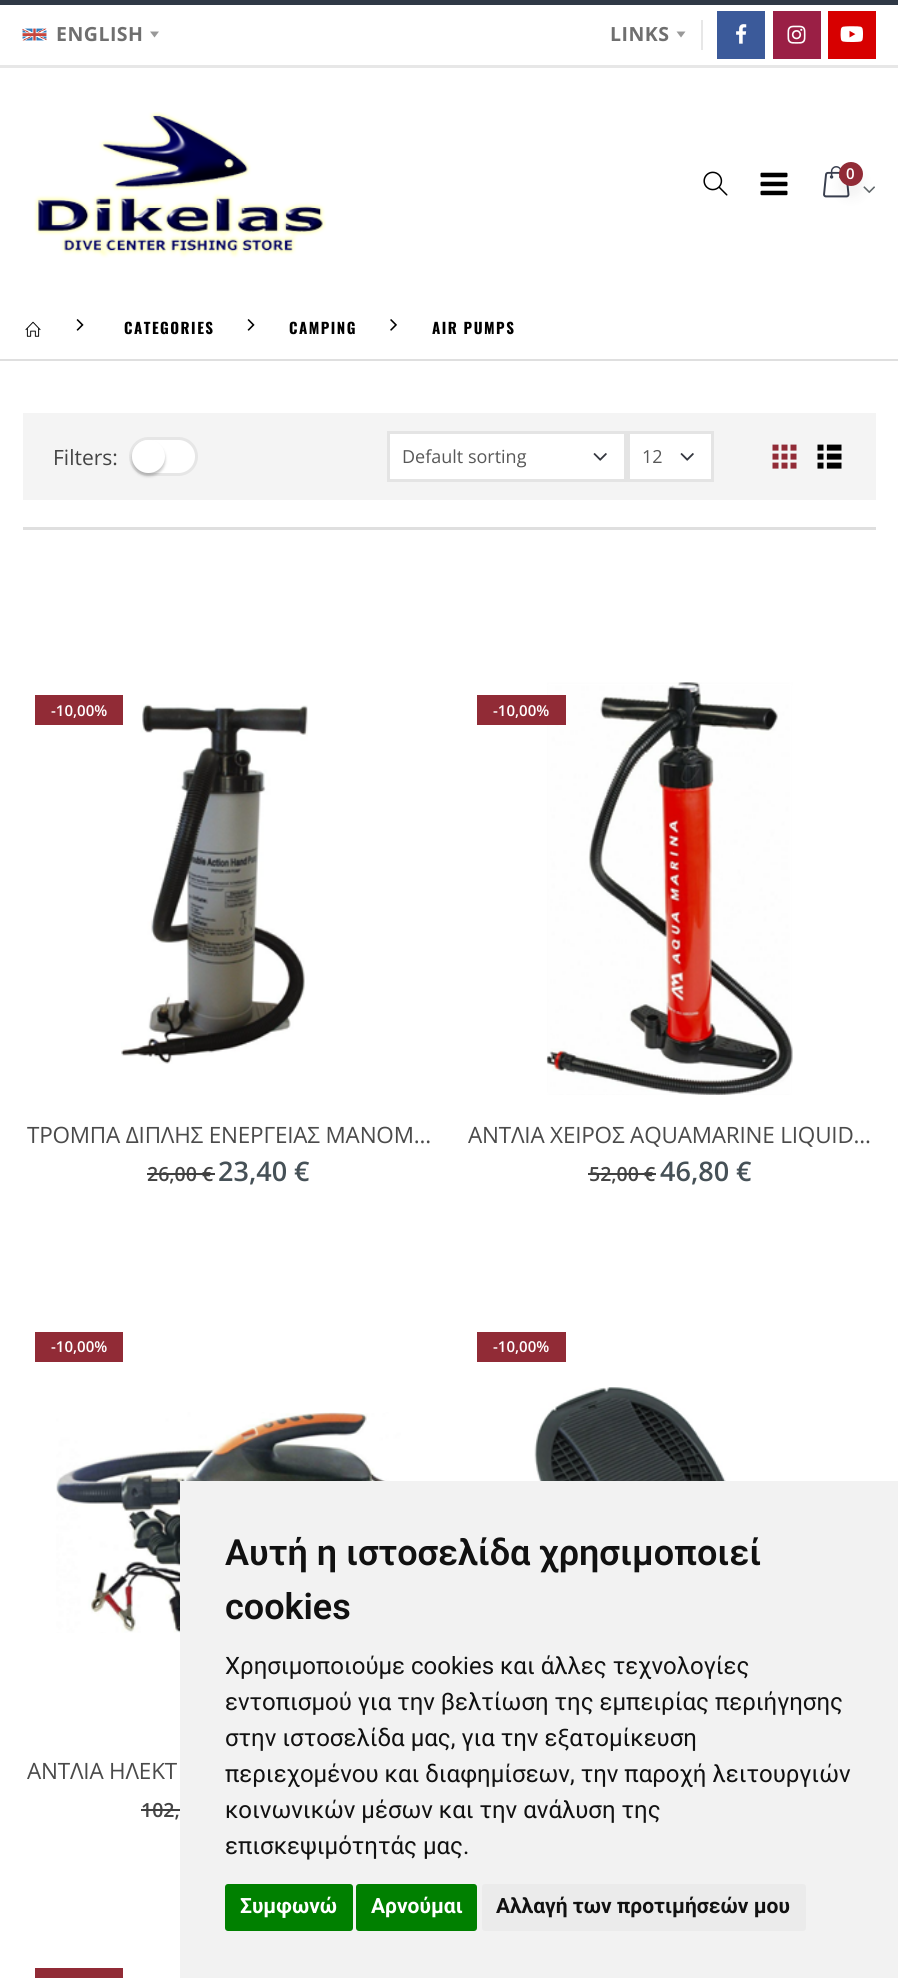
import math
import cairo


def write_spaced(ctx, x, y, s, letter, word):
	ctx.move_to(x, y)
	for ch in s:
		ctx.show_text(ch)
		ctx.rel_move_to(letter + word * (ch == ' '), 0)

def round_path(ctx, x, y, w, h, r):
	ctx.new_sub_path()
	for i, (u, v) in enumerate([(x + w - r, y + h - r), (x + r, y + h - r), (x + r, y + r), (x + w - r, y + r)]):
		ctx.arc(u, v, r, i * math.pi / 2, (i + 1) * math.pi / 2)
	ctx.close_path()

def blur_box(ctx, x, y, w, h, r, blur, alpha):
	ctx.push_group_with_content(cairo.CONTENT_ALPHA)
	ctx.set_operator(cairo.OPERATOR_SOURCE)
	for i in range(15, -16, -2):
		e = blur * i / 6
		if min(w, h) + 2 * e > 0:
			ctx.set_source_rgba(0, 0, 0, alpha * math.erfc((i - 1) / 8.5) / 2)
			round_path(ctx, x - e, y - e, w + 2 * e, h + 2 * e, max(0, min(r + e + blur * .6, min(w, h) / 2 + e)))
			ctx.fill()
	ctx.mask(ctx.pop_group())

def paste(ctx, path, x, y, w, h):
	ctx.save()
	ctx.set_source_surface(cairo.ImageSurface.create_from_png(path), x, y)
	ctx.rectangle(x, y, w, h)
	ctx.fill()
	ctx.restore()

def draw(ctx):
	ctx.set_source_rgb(1, 1, 1)
	ctx.paint()
	ctx.set_source_rgb(0.184, 0.224, 0.275)
	ctx.rectangle(0, 0, 898, 5)
	ctx.fill()
	ctx.set_source_rgb(0.906, 0.906, 0.906)
	ctx.rectangle(0, 65, 898, 3)
	ctx.fill()
	paste(ctx, 'media/1.png', 22, 28, 25, 13)
	ctx.select_font_face('Open Sans', cairo.FONT_SLANT_NORMAL, cairo.FONT_WEIGHT_BOLD)
	ctx.set_font_size(19.5)
	ctx.set_source_rgb(0.435, 0.435, 0.435)
	write_spaced(ctx, 56, 41, 'ENGLISH', 0.5, 0)
	ctx.set_source_rgb(0.6, 0.6, 0.6)
	ctx.new_path()
	ctx.move_to(150, 31.5)
	ctx.line_to(159, 31.5)
	ctx.line_to(154.5, 37.5)
	ctx.close_path()
	ctx.fill()
	ctx.set_source_rgb(0.435, 0.435, 0.435)
	write_spaced(ctx, 610, 41, 'LINKS', 0.5, 0)
	ctx.set_source_rgb(0.6, 0.6, 0.6)
	ctx.new_path()
	ctx.move_to(676.5, 31.5)
	ctx.line_to(685.5, 31.5)
	ctx.line_to(681, 37.5)
	ctx.close_path()
	ctx.fill()
	ctx.set_source_rgb(0.906, 0.906, 0.906)
	ctx.rectangle(701, 20, 2, 30)
	ctx.fill()
	ctx.set_source_rgb(0.231, 0.353, 0.604)
	ctx.rectangle(717, 11, 48, 48)
	ctx.fill()
	paste(ctx, 'media/2.png', 736, 24, 11, 20)
	ctx.set_source_rgb(0.604, 0.122, 0.271)
	ctx.rectangle(773, 11, 48, 48)
	ctx.fill()
	paste(ctx, 'media/3.png', 787, 25, 19, 19)
	ctx.set_source_rgb(0.843, 0, 0)
	ctx.rectangle(828, 11, 48, 48)
	ctx.fill()
	paste(ctx, 'media/4.png', 840, 26, 23, 16)
	paste(ctx, 'media/5.png', 34, 112, 292, 146)
	paste(ctx, 'media/6.png', 703, 171, 25, 25)
	paste(ctx, 'media/7.png', 760, 172, 28, 24)
	paste(ctx, 'media/8.png', 823, 166, 27, 32)
	ctx.set_source_rgb(0, 0, 0)
	blur_box(ctx, 839, 173, 24, 24, 12, 6, 0.05)
	ctx.set_source_rgb(0.569, 0.169, 0.212)
	ctx.arc(851, 174, 12, 0, 2 * math.pi)
	ctx.fill()
	ctx.select_font_face('Open Sans SemiBold')
	ctx.set_font_size(15)
	ctx.set_source_rgb(1, 1, 1)
	ctx.move_to(846, 179)
	ctx.show_text('0')
	paste(ctx, 'media/9.png', 863, 186, 12, 8)
	ctx.set_source_rgb(0.875, 0.875, 0.875)
	ctx.rectangle(0, 359, 898, 2)
	ctx.fill()
	paste(ctx, 'media/10.png', 25, 321, 16, 16)
	paste(ctx, 'media/11.png', 76, 319, 8, 12)
	ctx.select_font_face('Oswald', cairo.FONT_SLANT_NORMAL, cairo.FONT_WEIGHT_BOLD)
	ctx.set_source_rgb(0, 0, 0)
	write_spaced(ctx, 124, 334, 'CATEGORIES', 1.5, 0)
	paste(ctx, 'media/11.png', 247, 319, 8, 12)
	write_spaced(ctx, 289, 334, 'CAMPING', 1.5, 0)
	paste(ctx, 'media/12.png', 390, 319, 7, 12)
	write_spaced(ctx, 432, 334, 'AIR PUMPS', 1.5, 0)
	ctx.set_source_rgb(0.957, 0.957, 0.957)
	ctx.rectangle(23, 413, 853, 87)
	ctx.fill()
	ctx.select_font_face('Open Sans')
	ctx.set_font_size(21)
	ctx.set_source_rgb(0.267, 0.267, 0.267)
	ctx.move_to(53, 465)
	ctx.show_text('Filters:')
	ctx.set_source_rgb(0.902, 0.902, 0.902)
	round_path(ctx, 129, 437, 69, 39, 19.5)
	ctx.fill()
	ctx.set_source_rgb(1, 1, 1)
	round_path(ctx, 132, 440, 63, 33, 16.5)
	ctx.fill()
	ctx.set_source_rgb(0, 0, 0)
	blur_box(ctx, 132, 443, 33, 33, 16.5, 1.5, 0.24)
	ctx.set_source_rgb(1, 1, 1)
	ctx.arc(148.5, 456.5, 16.5, 0, 2 * math.pi)
	ctx.fill()
	ctx.rectangle(388.5, 432.5, 237, 48)
	ctx.fill_preserve()
	ctx.set_source_rgb(0.894, 0.894, 0.894)
	ctx.set_line_width(3)
	ctx.stroke()
	ctx.set_font_size(18)
	ctx.set_source_rgb(0.345, 0.345, 0.345)
	ctx.move_to(402, 463)
	ctx.show_text('Default sorting')
	paste(ctx, 'media/13.png', 593, 453, 14, 8)
	ctx.set_source_rgb(1, 1, 1)
	ctx.rectangle(628.5, 432.5, 84, 48)
	ctx.fill_preserve()
	ctx.set_source_rgb(0.894, 0.894, 0.894)
	ctx.stroke()
	ctx.set_source_rgb(0.345, 0.345, 0.345)
	ctx.move_to(642, 463)
	ctx.show_text('12')
	paste(ctx, 'media/13.png', 680, 453, 14, 8)
	paste(ctx, 'media/14.png', 772, 444, 25, 25)
	paste(ctx, 'media/15.png', 817, 444, 25, 25)
	ctx.set_source_rgb(0.875, 0.875, 0.875)
	ctx.rectangle(23, 527, 853, 3)
	ctx.fill()
	paste(ctx, 'media/16.png', 121, 704, 187, 360)
	ctx.set_source_rgb(0.569, 0.169, 0.212)
	ctx.rectangle(35, 695, 88, 30)
	ctx.fill()
	ctx.select_font_face('Open Sans SemiBold')
	ctx.set_font_size(15)
	ctx.set_source_rgb(1, 1, 1)
	ctx.move_to(51, 716)
	ctx.show_text('-10,00%')
	ctx.select_font_face('Open Sans')
	ctx.set_font_size(22.5)
	ctx.set_source_rgb(0.29, 0.29, 0.29)
	write_spaced(ctx, 27, 1143, 'ΤΡΟΜΠΑ ΔΙΠΛΗΣ ΕΝΕΡΓΕΙΑΣ ΜΑΝΟΜ...', -0.2, 0)
	ctx.select_font_face('Open Sans SemiBold')
	ctx.set_font_size(19.5)
	ctx.set_source_rgb(0.267, 0.267, 0.267)
	ctx.move_to(147, 1181)
	ctx.show_text('26,00 €')
	ctx.set_source_rgb(0.251, 0.251, 0.251)
	ctx.rectangle(147, 1173, 68, 2)
	ctx.fill()
	ctx.set_font_size(27)
	ctx.set_source_rgb(0.275, 0.318, 0.341)
	ctx.move_to(218, 1181)
	ctx.show_text('23,40 €')
	paste(ctx, 'media/17.png', 546, 682, 247, 413)
	ctx.set_source_rgb(0.569, 0.169, 0.212)
	ctx.rectangle(477, 695, 89, 30)
	ctx.fill()
	ctx.set_font_size(15)
	ctx.set_source_rgb(1, 1, 1)
	ctx.move_to(493, 716)
	ctx.show_text('-10,00%')
	ctx.select_font_face('Open Sans')
	ctx.set_font_size(22.5)
	ctx.set_source_rgb(0.29, 0.29, 0.29)
	write_spaced(ctx, 468, 1143, 'ΑΝΤΛΙΑ ΧΕΙΡΟΣ AQUAMARINE LIQUID...', -0.2, 0)
	ctx.select_font_face('Open Sans SemiBold')
	ctx.set_font_size(19.5)
	ctx.set_source_rgb(0.267, 0.267, 0.267)
	ctx.move_to(589, 1181)
	ctx.show_text('52,00 €')
	ctx.set_source_rgb(0.251, 0.251, 0.251)
	ctx.rectangle(588, 1173, 68, 2)
	ctx.fill()
	ctx.set_font_size(27)
	ctx.set_source_rgb(0.275, 0.318, 0.341)
	ctx.move_to(660, 1181)
	ctx.show_text('46,80 €')
	ctx.set_source_rgb(0.569, 0.169, 0.212)
	ctx.rectangle(35, 1332, 88, 30)
	ctx.fill()
	ctx.set_font_size(15)
	ctx.set_source_rgb(1, 1, 1)
	ctx.move_to(51, 1352)
	ctx.show_text('-10,00%')
	paste(ctx, 'media/18.png', 56, 1412, 345, 221)
	ctx.select_font_face('Open Sans')
	ctx.set_font_size(22.5)
	ctx.set_source_rgb(0.29, 0.29, 0.29)
	write_spaced(ctx, 27, 1779, 'ΑΝΤΛΙΑ ΗΛΕΚΤ', -0.2, 0)
	ctx.select_font_face('Open Sans SemiBold')
	ctx.set_font_size(19.5)
	ctx.set_source_rgb(0.267, 0.267, 0.267)
	ctx.move_to(141, 1817)
	ctx.show_text('102,')
	ctx.set_source_rgb(0.251, 0.251, 0.251)
	ctx.rectangle(141, 1809, 39, 2)
	ctx.fill()
	ctx.set_source_rgb(0.569, 0.169, 0.212)
	ctx.rectangle(477, 1332, 89, 30)
	ctx.fill()
	ctx.set_font_size(15)
	ctx.set_source_rgb(1, 1, 1)
	ctx.move_to(493, 1352)
	ctx.show_text('-10,00%')
	paste(ctx, 'media/19.png', 489, 1387, 364, 94)
	ctx.set_source_rgb(0.569, 0.169, 0.212)
	ctx.rectangle(35, 1968, 88, 10)
	ctx.fill()
	ctx.set_source_rgb(0.949, 0.949, 0.949)
	ctx.rectangle(180, 1481, 718, 497)
	ctx.fill()
	ctx.select_font_face('Roboto SemiBold')
	ctx.set_font_size(36)
	ctx.set_source_rgb(0.067, 0.067, 0.067)
	ctx.move_to(225, 1565)
	ctx.show_text('Αυτή η ιστοσελίδα χρησιμοποιεί')
	ctx.move_to(225, 1619)
	ctx.show_text('cookies')
	ctx.select_font_face('Roboto')
	ctx.set_font_size(24)
	for x, y, s in [
		(225, 1674, 'Χρησιμοποιούμε cookies και άλλες τεχνολογίες'),
		(225, 1710, 'εντοπισμού για την βελτίωση της εμπειρίας περιήγησης'),
		(225, 1746, 'στην ιστοσελίδα μας, για την εξατομίκευση'),
		(225, 1782, 'περιεχομένου και διαφημίσεων, την παροχή λειτουργιών'),
		(225, 1818, 'κοινωνικών μέσων και την ανάλυση της'),
		(225, 1854, 'επισκεψιμότητάς μας.'),
	]:
		ctx.move_to(x, y)
		ctx.show_text(s)
	ctx.set_source_rgb(0, 0.502, 0)
	round_path(ctx, 225, 1884, 128, 47, 3)
	ctx.fill()
	ctx.select_font_face('Roboto', cairo.FONT_SLANT_NORMAL, cairo.FONT_WEIGHT_BOLD)
	ctx.set_font_size(21)
	ctx.set_source_rgb(1, 1, 1)
	ctx.move_to(240, 1913)
	ctx.show_text('Συμφωνώ')
	ctx.set_source_rgb(0, 0.502, 0)
	round_path(ctx, 356, 1884, 121, 47, 3)
	ctx.fill()
	ctx.set_source_rgb(1, 1, 1)
	ctx.move_to(371, 1913)
	ctx.show_text('Αρνούμαι')
	ctx.set_source_rgb(0.918, 0.918, 0.918)
	round_path(ctx, 482, 1884, 324, 47, 3)
	ctx.fill()
	ctx.set_source_rgb(0.067, 0.067, 0.067)
	ctx.move_to(496, 1913)
	ctx.show_text('Αλλαγή των προτιμήσεών μου')


surface = cairo.ImageSurface(cairo.FORMAT_RGB24, 898, 1978)
ctx = cairo.Context(surface)
options = cairo.FontOptions()
options.set_hint_metrics(cairo.HINT_METRICS_OFF)
options.set_hint_style(cairo.HINT_STYLE_NONE)
ctx.set_font_options(options)
ctx.set_miter_limit(4)
draw(ctx)
surface.write_to_png('image.png')
